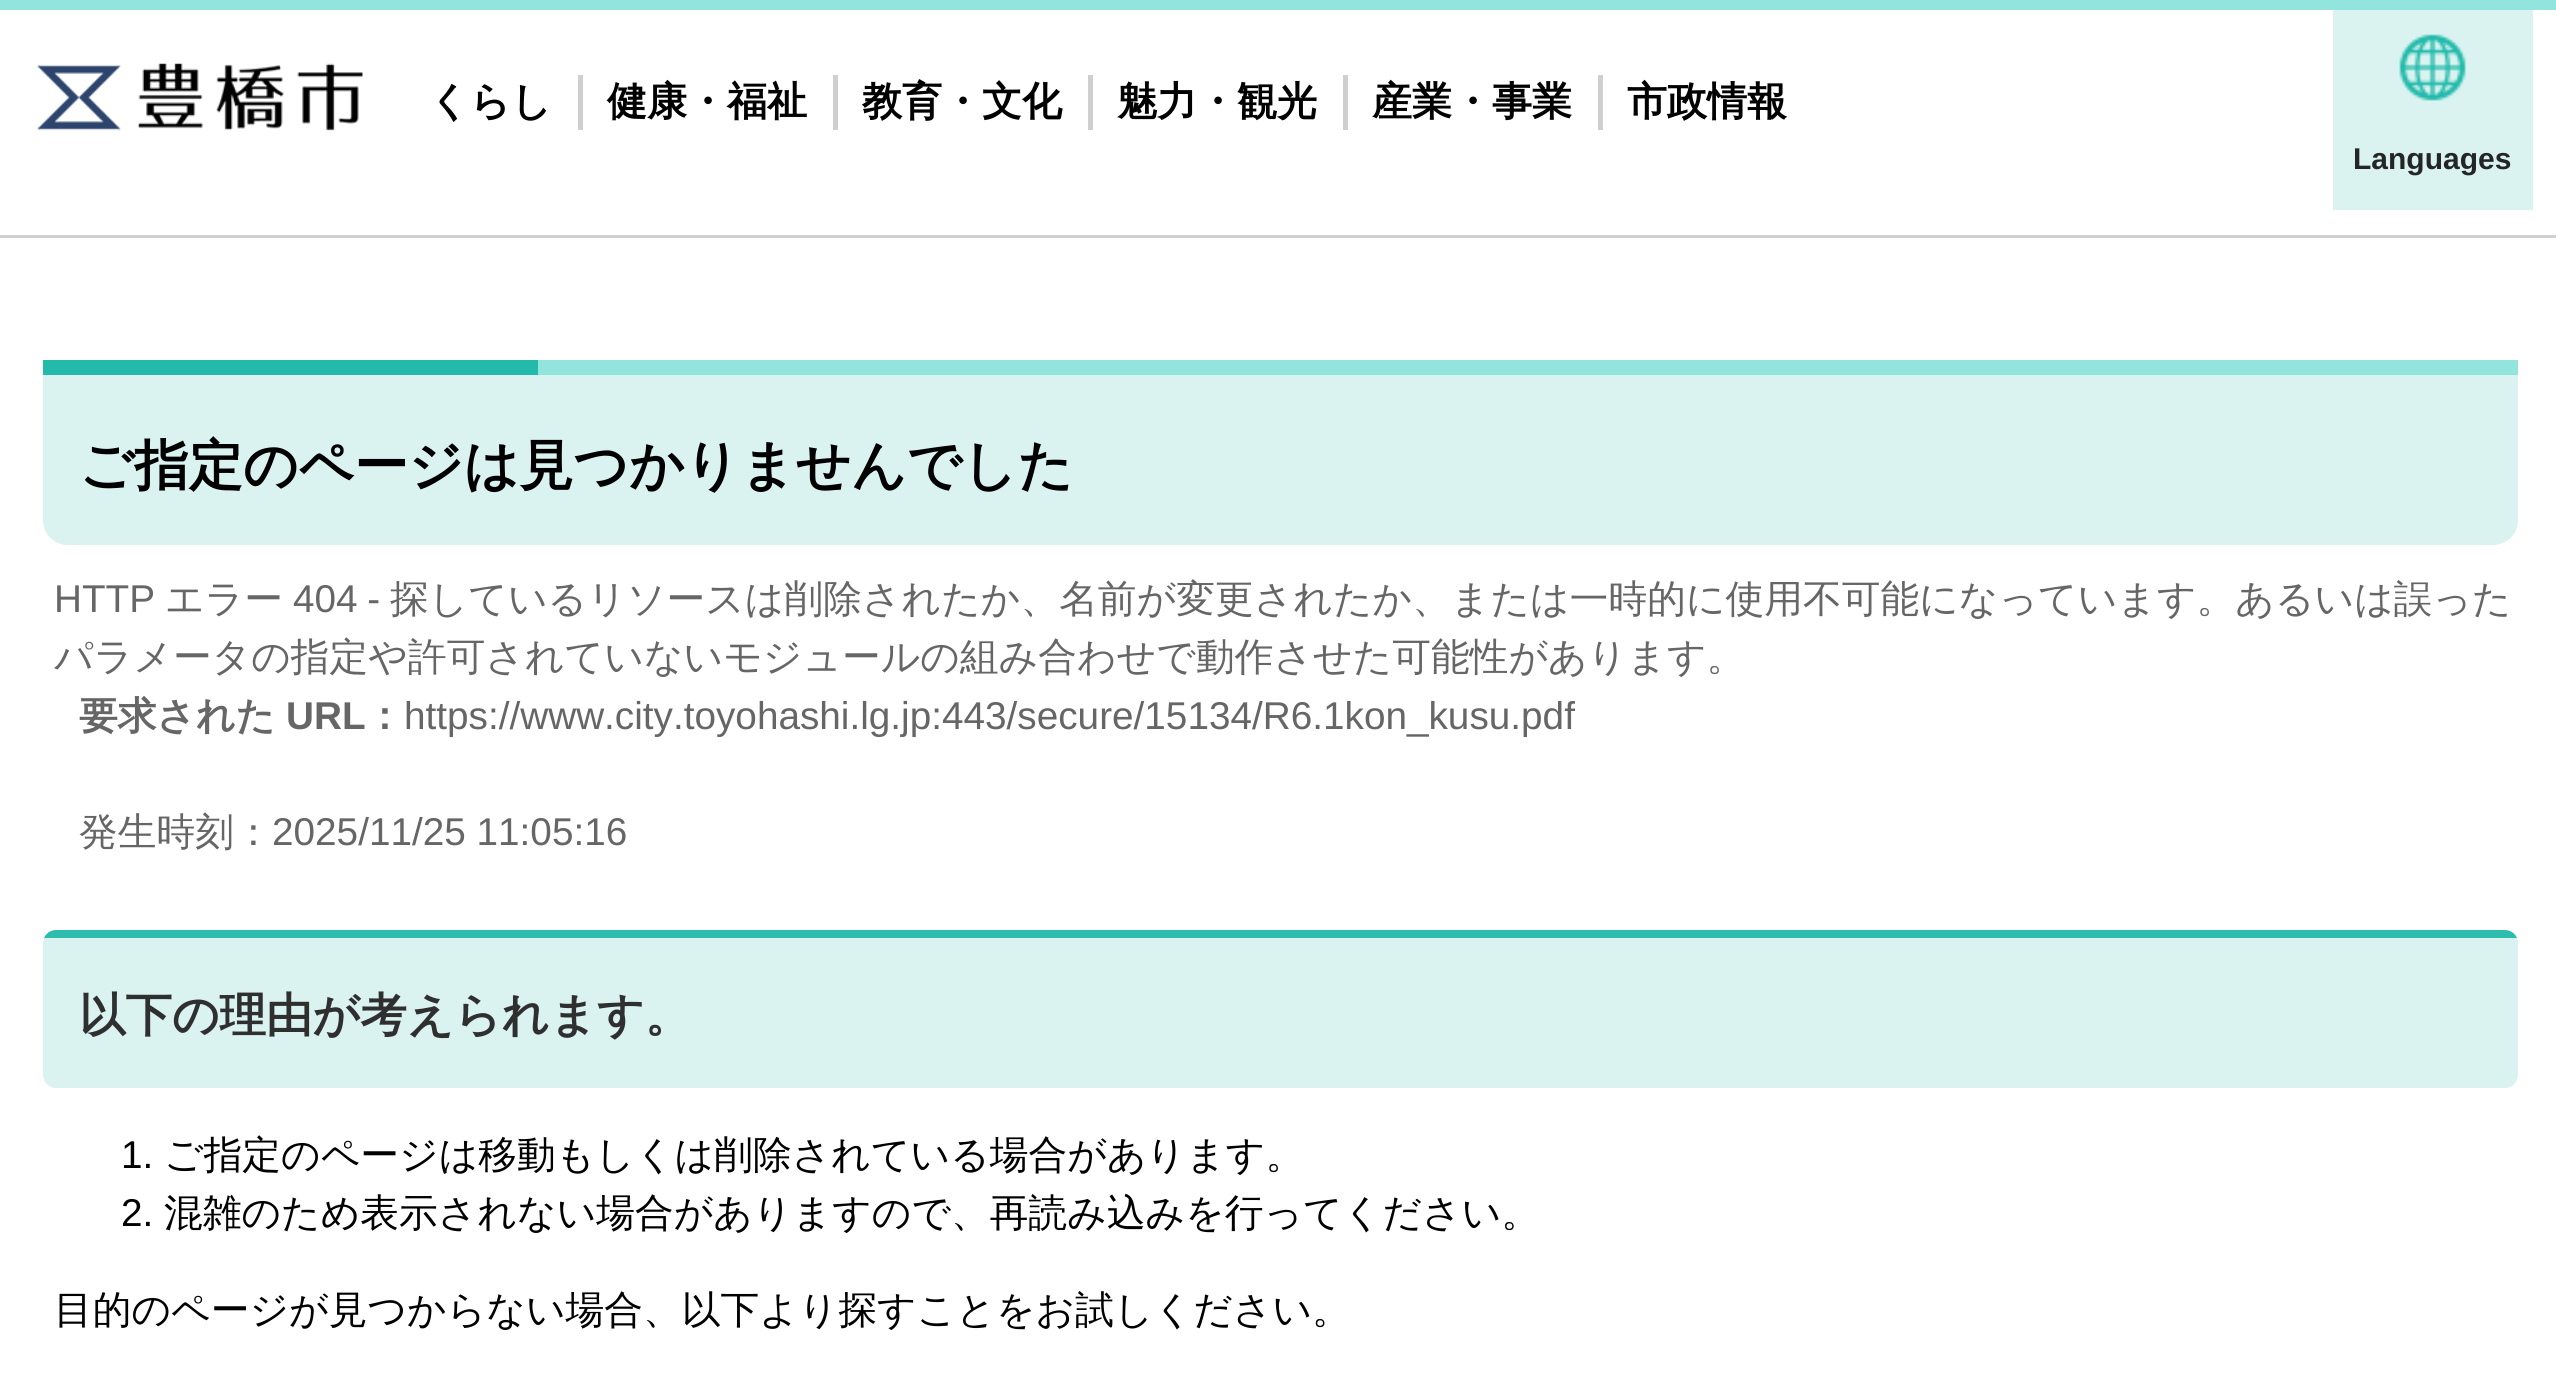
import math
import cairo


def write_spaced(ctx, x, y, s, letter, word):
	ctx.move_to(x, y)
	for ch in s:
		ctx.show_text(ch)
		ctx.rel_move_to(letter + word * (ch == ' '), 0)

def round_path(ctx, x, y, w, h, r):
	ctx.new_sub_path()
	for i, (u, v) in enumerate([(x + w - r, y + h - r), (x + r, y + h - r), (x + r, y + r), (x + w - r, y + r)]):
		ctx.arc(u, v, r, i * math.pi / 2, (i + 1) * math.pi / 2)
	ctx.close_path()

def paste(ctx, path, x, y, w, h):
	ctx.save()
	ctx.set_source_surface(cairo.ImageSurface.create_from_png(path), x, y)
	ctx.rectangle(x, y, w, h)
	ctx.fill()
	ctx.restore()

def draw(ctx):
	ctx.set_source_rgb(1, 1, 1)
	ctx.paint()
	ctx.set_source_rgb(0.812, 0.812, 0.812)
	ctx.rectangle(578, 75, 5, 55)
	ctx.fill()
	ctx.select_font_face('WenQuanYi Zen Hei', cairo.FONT_SLANT_NORMAL, cairo.FONT_WEIGHT_BOLD)
	ctx.set_font_size(40)
	ctx.set_source_rgb(0, 0, 0)
	ctx.move_to(429, 115)
	ctx.show_text('くらし')
	ctx.set_source_rgb(0.812, 0.812, 0.812)
	ctx.rectangle(833, 75, 5, 55)
	ctx.fill()
	ctx.set_source_rgb(0, 0, 0)
	ctx.move_to(607, 115)
	ctx.show_text('健康・福祉')
	ctx.set_source_rgb(0.812, 0.812, 0.812)
	ctx.rectangle(1088, 75, 5, 55)
	ctx.fill()
	ctx.set_source_rgb(0, 0, 0)
	ctx.move_to(862, 115)
	ctx.show_text('教育・文化')
	ctx.set_source_rgb(0.812, 0.812, 0.812)
	ctx.rectangle(1343, 75, 5, 55)
	ctx.fill()
	ctx.set_source_rgb(0, 0, 0)
	ctx.move_to(1117, 115)
	ctx.show_text('魅力・観光')
	ctx.set_source_rgb(0.812, 0.812, 0.812)
	ctx.rectangle(1598, 75, 5, 55)
	ctx.fill()
	ctx.set_source_rgb(0, 0, 0)
	ctx.move_to(1372, 115)
	ctx.show_text('産業・事業')
	ctx.move_to(1627, 115)
	ctx.show_text('市政情報')
	ctx.set_source_rgb(0.573, 0.898, 0.867)
	ctx.rectangle(0, 0, 2556, 10)
	ctx.fill()
	ctx.set_source_rgb(0.812, 0.812, 0.812)
	ctx.rectangle(0, 235, 2556, 3)
	ctx.fill()
	paste(ctx, 'media/1.png', 37, 63, 326, 68)
	ctx.set_source_rgb(0.855, 0.953, 0.941)
	ctx.rectangle(2333, 10, 200, 200)
	ctx.fill()
	paste(ctx, 'media/2.png', 2399, 34, 67, 67)
	ctx.select_font_face('Liberation Sans', cairo.FONT_SLANT_NORMAL, cairo.FONT_WEIGHT_BOLD)
	ctx.set_font_size(30)
	ctx.set_source_rgb(0.141, 0.145, 0.145)
	ctx.move_to(2353, 169)
	ctx.show_text('Languages')
	ctx.set_source_rgb(0.855, 0.953, 0.941)
	ctx.new_path()
	ctx.move_to(43, 360)
	ctx.line_to(2518, 360)
	ctx.line_to(2518, 520)
	ctx.curve_to(2518, 534, 2507, 545, 2493, 545)
	ctx.line_to(68, 545)
	ctx.curve_to(54, 545, 43, 534, 43, 520)
	ctx.close_path()
	ctx.fill()
	ctx.set_source_rgb(0.573, 0.898, 0.867)
	ctx.rectangle(538, 360, 1980, 15)
	ctx.fill()
	ctx.set_source_rgb(0.137, 0.729, 0.671)
	ctx.rectangle(43, 360, 495, 15)
	ctx.fill()
	ctx.select_font_face('WenQuanYi Zen Hei', cairo.FONT_SLANT_NORMAL, cairo.FONT_WEIGHT_BOLD)
	ctx.set_font_size(54.25)
	ctx.set_source_rgb(0, 0, 0)
	ctx.move_to(79, 484)
	ctx.show_text('ご指定のページは見つかりませんでした')
	ctx.select_font_face('Liberation Sans')
	ctx.set_font_size(38.72)
	ctx.set_source_rgb(0.4, 0.4, 0.4)
	ctx.move_to(54, 612)
	ctx.show_text('HTTP')
	ctx.select_font_face('WenQuanYi Zen Hei Medium')
	ctx.move_to(165, 612)
	ctx.show_text('エラー')
	ctx.select_font_face('Liberation Sans')
	write_spaced(ctx, 293, 612, '404 -', 0, -1)
	ctx.select_font_face('WenQuanYi Zen Hei Medium')
	ctx.move_to(390, 612)
	ctx.show_text('探しているリソースは削除されたか、名前が変更されたか、または一時的に使用不可能になっています。あるいは誤った')
	ctx.move_to(54, 670)
	ctx.show_text('パラメータの指定や許可されていないモジュールの組み合わせで動作させた可能性があります。')
	ctx.select_font_face('WenQuanYi Zen Hei', cairo.FONT_SLANT_NORMAL, cairo.FONT_WEIGHT_BOLD)
	ctx.move_to(79, 729)
	ctx.show_text('要求された')
	ctx.select_font_face('Liberation Sans', cairo.FONT_SLANT_NORMAL, cairo.FONT_WEIGHT_BOLD)
	ctx.move_to(286, 729)
	ctx.show_text('URL')
	ctx.select_font_face('WenQuanYi Zen Hei', cairo.FONT_SLANT_NORMAL, cairo.FONT_WEIGHT_BOLD)
	ctx.move_to(365, 729)
	ctx.show_text('：')
	ctx.select_font_face('Liberation Sans')
	ctx.move_to(404, 729)
	ctx.show_text('https://www.city.toyohashi.lg.jp:443/secure/15134/R6.1kon_kusu.pdf')
	ctx.select_font_face('WenQuanYi Zen Hei Medium')
	ctx.move_to(79, 845)
	ctx.show_text('発生時刻：')
	ctx.select_font_face('Liberation Sans')
	ctx.move_to(272, 845)
	ctx.show_text('2025/11/25 11:05:16')
	ctx.save()
	round_path(ctx, 43, 930, 2475, 158, 13)
	ctx.clip()
	ctx.set_source_rgb(0.173, 0.741, 0.682)
	ctx.rectangle(43, 930, 2475, 8)
	ctx.fill()
	ctx.set_source_rgb(0.855, 0.953, 0.941)
	ctx.new_path()
	ctx.move_to(43, 938)
	ctx.line_to(2518, 938)
	ctx.line_to(2518, 1075)
	ctx.curve_to(2518, 1082, 2512, 1088, 2505, 1088)
	ctx.line_to(56, 1088)
	ctx.curve_to(49, 1088, 43, 1082, 43, 1075)
	ctx.close_path()
	ctx.fill()
	ctx.restore()
	ctx.select_font_face('WenQuanYi Zen Hei', cairo.FONT_SLANT_NORMAL, cairo.FONT_WEIGHT_BOLD)
	ctx.set_font_size(46.5)
	ctx.set_source_rgb(0.184, 0.184, 0.184)
	ctx.move_to(79, 1031)
	ctx.show_text('以下の理由が考えられます。')
	ctx.select_font_face('Liberation Sans')
	ctx.set_font_size(38.72)
	ctx.set_source_rgb(0, 0, 0)
	ctx.move_to(121, 1168)
	ctx.show_text('1.')
	ctx.select_font_face('WenQuanYi Zen Hei Medium')
	ctx.move_to(164, 1168)
	ctx.show_text('ご指定のページは移動もしくは削除されている場合があります。')
	ctx.select_font_face('Liberation Sans')
	ctx.move_to(121, 1226)
	ctx.show_text('2.')
	ctx.select_font_face('WenQuanYi Zen Hei Medium')
	ctx.move_to(164, 1226)
	ctx.show_text('混雑のため表示されない場合がありますので、再読み込みを行ってください。')
	ctx.move_to(54, 1323)
	ctx.show_text('目的のページが見つからない場合、以下より探すことをお試しください。')


surface = cairo.ImageSurface(cairo.FORMAT_RGB24, 2556, 1375)
ctx = cairo.Context(surface)
options = cairo.FontOptions()
options.set_hint_metrics(cairo.HINT_METRICS_OFF)
options.set_hint_style(cairo.HINT_STYLE_NONE)
ctx.set_font_options(options)
ctx.set_miter_limit(4)
draw(ctx)
surface.write_to_png('image.png')
